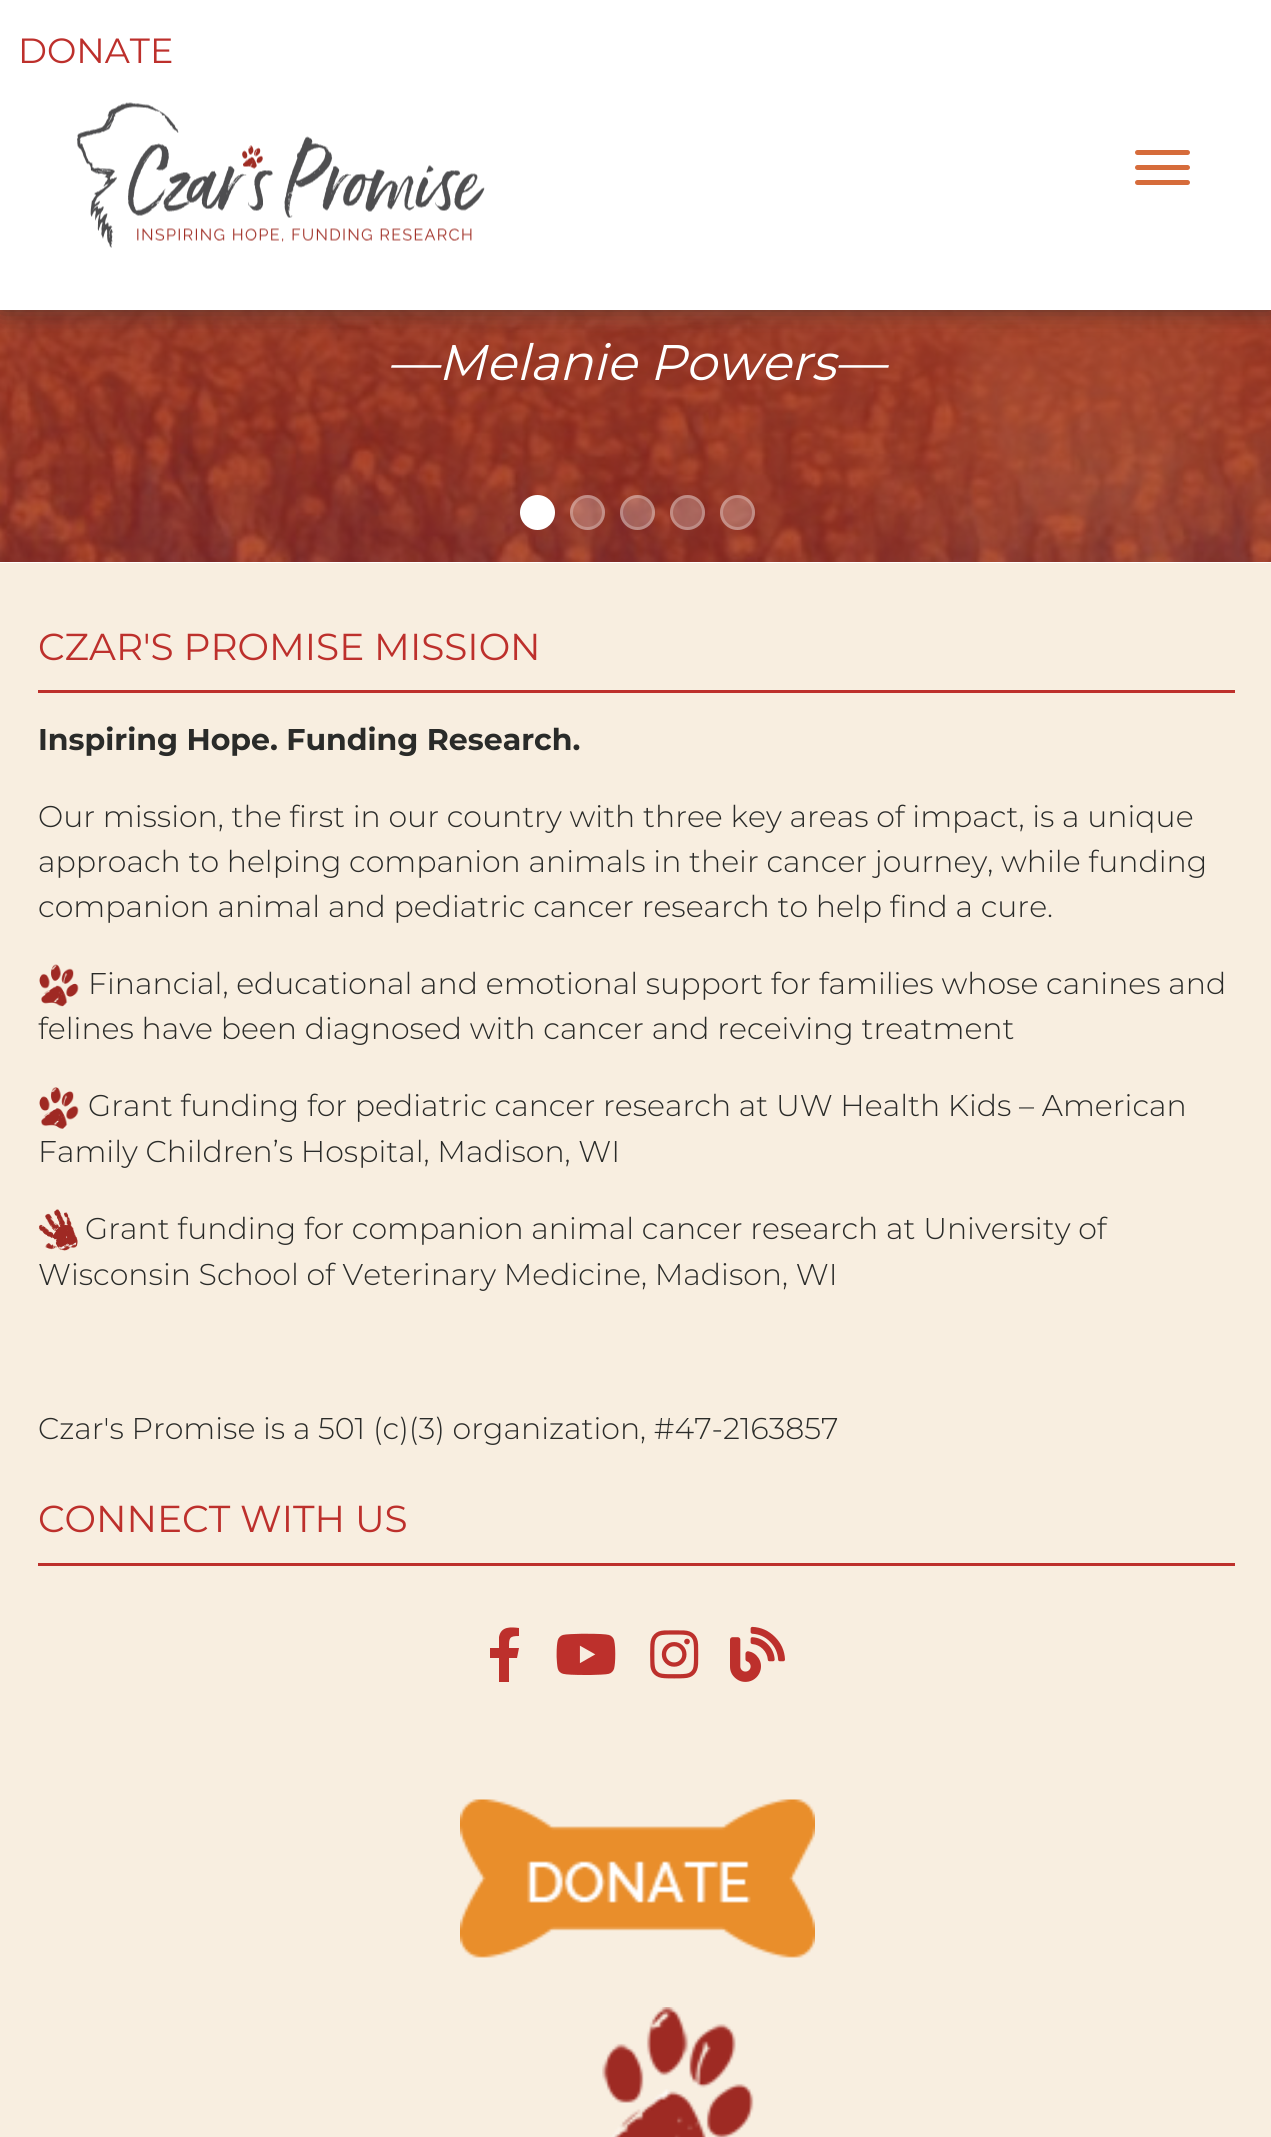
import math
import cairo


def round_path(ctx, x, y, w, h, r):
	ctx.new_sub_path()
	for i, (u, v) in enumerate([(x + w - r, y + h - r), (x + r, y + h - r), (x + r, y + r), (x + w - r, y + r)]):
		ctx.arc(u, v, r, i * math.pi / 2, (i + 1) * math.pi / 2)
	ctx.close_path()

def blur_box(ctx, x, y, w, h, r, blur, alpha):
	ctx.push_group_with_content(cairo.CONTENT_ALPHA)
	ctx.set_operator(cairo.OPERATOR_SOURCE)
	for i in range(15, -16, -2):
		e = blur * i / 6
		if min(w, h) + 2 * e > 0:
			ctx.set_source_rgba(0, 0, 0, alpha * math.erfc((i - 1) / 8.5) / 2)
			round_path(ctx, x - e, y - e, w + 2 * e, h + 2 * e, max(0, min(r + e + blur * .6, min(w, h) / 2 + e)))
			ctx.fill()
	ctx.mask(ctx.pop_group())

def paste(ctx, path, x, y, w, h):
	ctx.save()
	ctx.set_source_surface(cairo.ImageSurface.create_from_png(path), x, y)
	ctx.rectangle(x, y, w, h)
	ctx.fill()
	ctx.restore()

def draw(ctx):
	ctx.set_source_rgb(1, 1, 1)
	ctx.paint()
	paste(ctx, 'media/2.png', 0, 310, 1271, 252)
	ctx.set_source_rgb(0.196, 0.196, 0.196)
	blur_box(ctx, 0, 0, 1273, 310, 0, 12.5, 0.7)
	ctx.set_source_rgb(1, 1, 1)
	ctx.rectangle(0, 0, 1271, 310)
	ctx.fill()
	ctx.select_font_face('Montserrat')
	ctx.set_font_size(35)
	ctx.set_source_rgb(0.741, 0.188, 0.173)
	ctx.move_to(18, 63)
	ctx.show_text('DONATE')
	paste(ctx, 'media/1.png', 77, 102, 408, 146)
	ctx.set_source_rgb(0.839, 0.424, 0.231)
	round_path(ctx, 1135, 150, 55, 5, 2.5)
	ctx.fill()
	round_path(ctx, 1135, 165, 55, 5, 2.5)
	ctx.fill()
	round_path(ctx, 1135, 180, 55, 5, 2.5)
	ctx.fill()
	ctx.select_font_face('Montserrat', cairo.FONT_SLANT_ITALIC)
	ctx.set_font_size(50)
	ctx.set_source_rgb(1, 1, 1)
	ctx.move_to(388, 380)
	ctx.show_text('—Melanie Powers—')
	ctx.new_path()
	ctx.arc(537.5, 512.5, 16, 0, 2 * math.pi)
	ctx.fill_preserve()
	ctx.set_line_width(3)
	ctx.stroke()
	ctx.set_source_rgba(1, 1, 1, 0.25)
	ctx.arc(587.5, 512.5, 17.5, 0, 2 * math.pi)
	ctx.fill()
	ctx.arc(587.5, 512.5, 16, 0, 2 * math.pi)
	ctx.stroke()
	ctx.arc(637.5, 512.5, 17.5, 0, 2 * math.pi)
	ctx.fill()
	ctx.arc(637.5, 512.5, 16, 0, 2 * math.pi)
	ctx.stroke()
	ctx.arc(687.5, 512.5, 17.5, 0, 2 * math.pi)
	ctx.fill()
	ctx.arc(687.5, 512.5, 16, 0, 2 * math.pi)
	ctx.stroke()
	ctx.arc(737.5, 512.5, 17.5, 0, 2 * math.pi)
	ctx.fill()
	ctx.arc(737.5, 512.5, 16, 0, 2 * math.pi)
	ctx.stroke()
	ctx.set_source_rgb(0.969, 0.933, 0.878)
	ctx.rectangle(0, 563, 1271, 1574)
	ctx.fill()
	ctx.set_source_rgb(0.741, 0.188, 0.173)
	ctx.rectangle(38, 690, 1197, 3)
	ctx.fill()
	ctx.select_font_face('Montserrat')
	ctx.set_font_size(37.5)
	ctx.move_to(38, 660)
	ctx.show_text('CZAR\'S PROMISE MISSION')
	ctx.select_font_face('Montserrat', cairo.FONT_SLANT_NORMAL, cairo.FONT_WEIGHT_BOLD)
	ctx.set_font_size(30)
	ctx.set_source_rgb(0.165, 0.169, 0.161)
	ctx.move_to(38, 750)
	ctx.show_text('Inspiring Hope. Funding Research.')
	ctx.select_font_face('Montserrat Light')
	for x, y, s in [
		(38, 827, 'Our mission, the first in our country with three key areas of impact, is a unique'),
		(38, 872, 'approach to helping companion animals in their cancer journey, while funding'),
		(38, 917, 'companion animal and pediatric cancer research to help find a cure.'),
	]:
		ctx.move_to(x, y)
		ctx.show_text(s)
	paste(ctx, 'media/3.png', 39, 964, 40, 43)
	ctx.move_to(88, 994)
	ctx.show_text('Financial, educational and emotional support for families whose canines and')
	ctx.move_to(38, 1039)
	ctx.show_text('felines have been diagnosed with cancer and receiving treatment')
	paste(ctx, 'media/4.png', 39, 1087, 40, 43)
	ctx.move_to(88, 1116)
	ctx.show_text('Grant funding for pediatric cancer research at UW Health Kids – American')
	ctx.move_to(38, 1162)
	ctx.show_text('Family Children’s Hospital, Madison, WI')
	paste(ctx, 'media/5.png', 38, 1209, 40, 42)
	for x, y, s in [
		(85, 1239, 'Grant funding for companion animal cancer research at University of'),
		(38, 1285, 'Wisconsin School of Veterinary Medicine, Madison, WI'),
		(38, 1439, 'Czar\'s Promise is a 501 (c)(3) organization, #47-2163857'),
	]:
		ctx.move_to(x, y)
		ctx.show_text(s)
	ctx.set_source_rgb(0.741, 0.188, 0.173)
	ctx.rectangle(38, 1563, 1197, 3)
	ctx.fill()
	ctx.select_font_face('Montserrat')
	ctx.set_font_size(37.5)
	ctx.move_to(38, 1532)
	ctx.show_text('CONNECT WITH US')
	ctx.new_path()
	ctx.move_to(517, 1658)
	ctx.line_to(509, 1658)
	ctx.line_to(509, 1682)
	ctx.line_to(499, 1682)
	ctx.line_to(499, 1658)
	ctx.line_to(490, 1658)
	ctx.line_to(490, 1648)
	ctx.line_to(499, 1648)
	ctx.line_to(499, 1637)
	ctx.curve_to(501, 1626, 511, 1627, 519, 1628)
	ctx.line_to(519, 1636)
	ctx.curve_to(509, 1636, 509, 1638, 509, 1648)
	ctx.line_to(519, 1648)
	ctx.close_path()
	ctx.fill()
	paste(ctx, 'media/6.png', 556, 1633, 60, 42)
	paste(ctx, 'media/7.png', 650, 1630, 49, 49)
	paste(ctx, 'media/8.png', 730, 1626, 55, 56)
	paste(ctx, 'media/9.png', 460, 1799, 355, 159)
	paste(ctx, 'media/10.png', 602, 2007, 152, 130)


surface = cairo.ImageSurface(cairo.FORMAT_RGB24, 1271, 2137)
ctx = cairo.Context(surface)
options = cairo.FontOptions()
options.set_hint_metrics(cairo.HINT_METRICS_OFF)
options.set_hint_style(cairo.HINT_STYLE_NONE)
ctx.set_font_options(options)
ctx.set_miter_limit(4)
draw(ctx)
surface.write_to_png('image.png')
